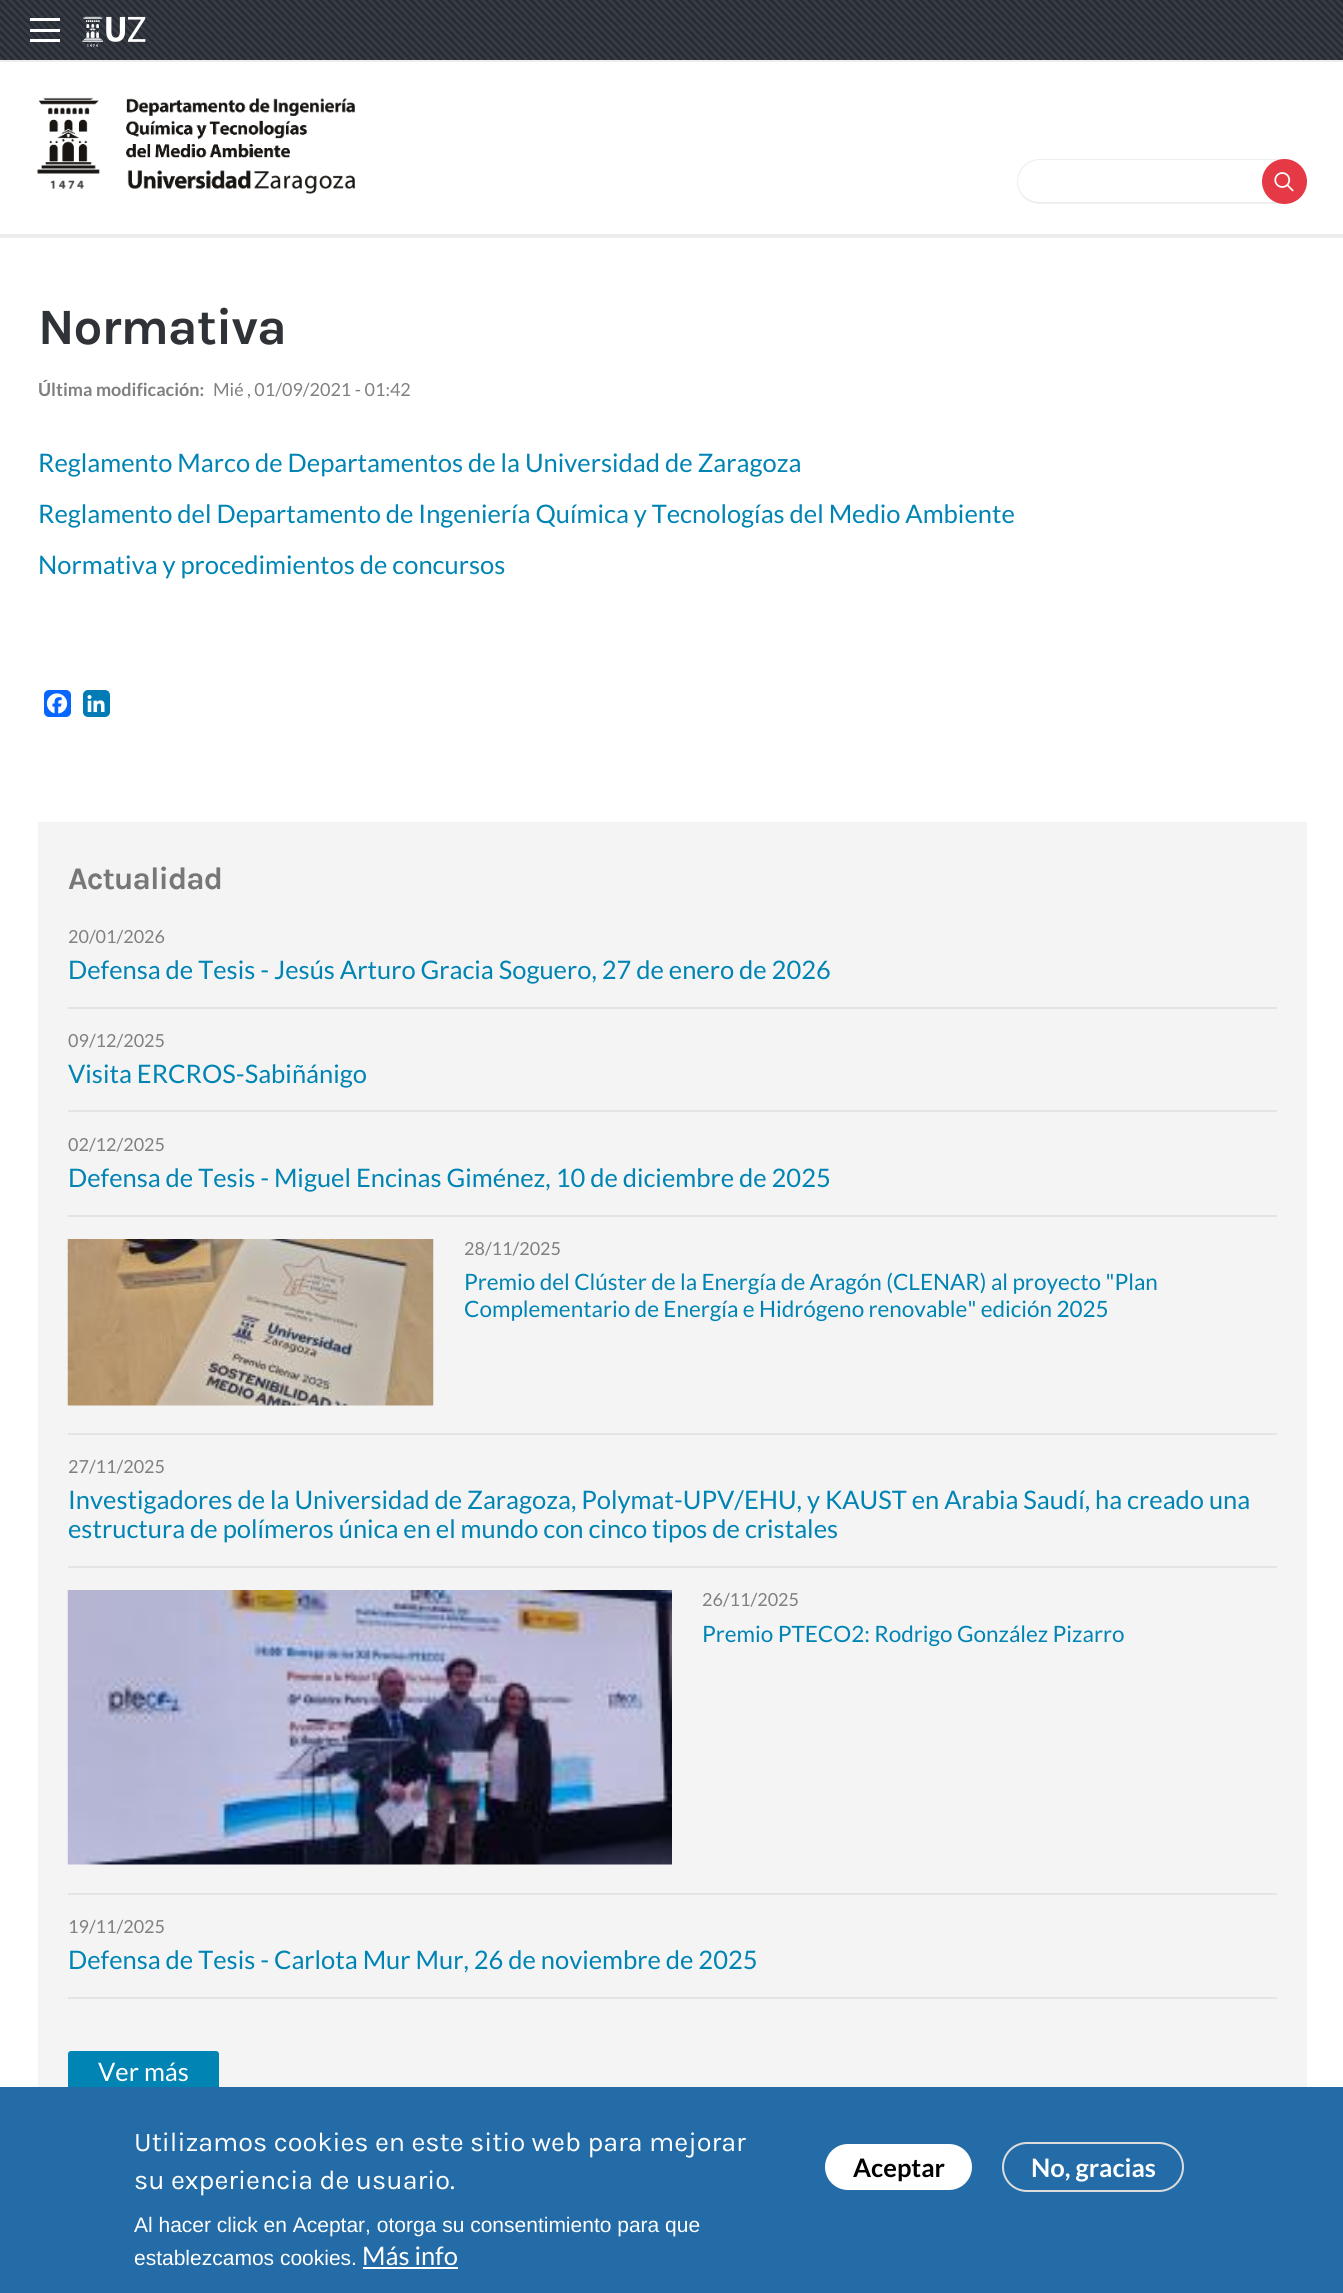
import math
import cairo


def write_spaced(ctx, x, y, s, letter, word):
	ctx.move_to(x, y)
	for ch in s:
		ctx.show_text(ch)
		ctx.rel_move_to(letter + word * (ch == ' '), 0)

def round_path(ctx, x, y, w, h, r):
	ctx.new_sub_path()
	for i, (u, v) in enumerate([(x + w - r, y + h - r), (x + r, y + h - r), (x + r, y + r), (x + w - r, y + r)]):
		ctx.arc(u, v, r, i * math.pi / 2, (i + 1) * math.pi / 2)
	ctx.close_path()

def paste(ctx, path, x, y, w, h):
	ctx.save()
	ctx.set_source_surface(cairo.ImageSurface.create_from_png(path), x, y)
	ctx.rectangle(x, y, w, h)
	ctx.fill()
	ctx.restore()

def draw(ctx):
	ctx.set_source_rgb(1, 1, 1)
	ctx.paint()
	ctx.set_source_rgb(0.925, 0.925, 0.925)
	ctx.rectangle(0, 234, 1343, 2)
	ctx.fill()
	ctx.set_source_rgb(0.141, 0.161, 0.2)
	ctx.rectangle(0, 0, 1343, 60)
	ctx.fill()
	paste(ctx, 'media/1.png', 0, 0, 1343, 60)
	ctx.set_source_rgb(0.933, 0.933, 0.933)
	ctx.rectangle(0, 60, 1343, 2)
	ctx.fill()
	ctx.set_source_rgb(1, 1, 1)
	ctx.rectangle(30, 29, 30, 3)
	ctx.rectangle(30, 18, 30, 3)
	ctx.rectangle(30, 39, 30, 3)
	ctx.fill()
	paste(ctx, 'media/2.png', 82, 16, 64, 31)
	paste(ctx, 'media/3.png', 37, 97, 319, 97)
	ctx.set_source_rgb(0.933, 0.933, 0.933)
	ctx.set_fill_rule(cairo.FILL_RULE_EVEN_ODD)
	ctx.new_path()
	ctx.move_to(1040, 159)
	ctx.line_to(1287, 159)
	ctx.line_to(1287, 204)
	ctx.line_to(1040, 204)
	ctx.curve_to(1027, 204, 1017, 194, 1017, 182)
	ctx.curve_to(1017, 169, 1027, 159, 1040, 159)
	ctx.close_path()
	ctx.move_to(1040, 160)
	ctx.line_to(1287, 160)
	ctx.line_to(1287, 202)
	ctx.line_to(1040, 202)
	ctx.curve_to(1028, 202, 1018, 193, 1018, 182)
	ctx.curve_to(1018, 170, 1028, 160, 1040, 160)
	ctx.close_path()
	ctx.fill()
	ctx.set_source_rgb(0.902, 0.224, 0.275)
	ctx.arc(1284.5, 181.5, 22.5, 0, 2 * math.pi)
	ctx.fill()
	paste(ctx, 'media/4.png', 1274, 172, 20, 20)
	ctx.set_source_rgb(0.933, 0.933, 0.933)
	ctx.rectangle(0, 236, 1343, 2)
	ctx.fill()
	ctx.select_font_face('Karla', cairo.FONT_SLANT_NORMAL, cairo.FONT_WEIGHT_BOLD)
	ctx.set_font_size(51)
	ctx.set_source_rgb(0.184, 0.2, 0.216)
	write_spaced(ctx, 38, 344, 'Normativa', -1, 0)
	ctx.select_font_face('Lato', cairo.FONT_SLANT_NORMAL, cairo.FONT_WEIGHT_BOLD)
	ctx.set_font_size(18)
	ctx.set_source_rgb(0.502, 0.502, 0.502)
	ctx.move_to(38, 396)
	ctx.show_text('Última modificación:')
	ctx.select_font_face('Lato')
	ctx.move_to(213, 396)
	ctx.show_text('Mié , 01/09/2021 - 01:42')
	ctx.set_font_size(25.5)
	ctx.set_source_rgb(0, 0.518, 0.706)
	for x, y, s in [
		(38, 472, 'Reglamento Marco de Departamentos de la Universidad de Zaragoza'),
		(38, 523, 'Reglamento del Departamento de Ingeniería Química y Tecnologías del Medio Ambiente'),
		(38, 574, 'Normativa y procedimientos de concursos'),
	]:
		ctx.move_to(x, y)
		ctx.show_text(s)
	ctx.set_source_rgb(0.031, 0.4, 1)
	round_path(ctx, 44, 690, 27, 27, 5)
	ctx.fill()
	paste(ctx, 'media/5.png', 46, 693, 22, 21)
	ctx.set_source_rgb(0, 0.482, 0.71)
	round_path(ctx, 83, 690, 27, 27, 5)
	ctx.fill()
	paste(ctx, 'media/6.png', 87, 695, 18, 17)
	ctx.set_source_rgb(0.957, 0.957, 0.957)
	ctx.rectangle(38, 822, 1269, 1265)
	ctx.fill()
	ctx.select_font_face('Karla', cairo.FONT_SLANT_NORMAL, cairo.FONT_WEIGHT_BOLD)
	ctx.set_font_size(31.5)
	ctx.set_source_rgb(0.467, 0.467, 0.467)
	write_spaced(ctx, 68, 889, 'Actualidad', -1, 0)
	ctx.set_source_rgb(0.894, 0.894, 0.894)
	ctx.rectangle(68, 1007, 1209, 2)
	ctx.fill()
	ctx.select_font_face('Lato')
	ctx.set_font_size(18)
	ctx.set_source_rgb(0.502, 0.502, 0.502)
	ctx.move_to(68, 943)
	ctx.show_text('20/01/2026')
	ctx.set_font_size(25.5)
	ctx.set_source_rgb(0, 0.518, 0.706)
	ctx.move_to(68, 979)
	ctx.show_text('Defensa de Tesis - Jesús Arturo Gracia Soguero, 27 de enero de 2026')
	ctx.set_source_rgb(0.894, 0.894, 0.894)
	ctx.rectangle(68, 1110, 1209, 2)
	ctx.fill()
	ctx.set_font_size(18)
	ctx.set_source_rgb(0.502, 0.502, 0.502)
	ctx.move_to(68, 1047)
	ctx.show_text('09/12/2025')
	ctx.set_font_size(25.5)
	ctx.set_source_rgb(0, 0.518, 0.706)
	ctx.move_to(68, 1083)
	ctx.show_text('Visita ERCROS-Sabiñánigo')
	ctx.set_source_rgb(0.894, 0.894, 0.894)
	ctx.rectangle(68, 1215, 1209, 2)
	ctx.fill()
	ctx.set_font_size(18)
	ctx.set_source_rgb(0.502, 0.502, 0.502)
	ctx.move_to(68, 1151)
	ctx.show_text('02/12/2025')
	ctx.set_font_size(25.5)
	ctx.set_source_rgb(0, 0.518, 0.706)
	ctx.move_to(68, 1187)
	ctx.show_text('Defensa de Tesis - Miguel Encinas Giménez, 10 de diciembre de 2025')
	ctx.set_source_rgb(0.894, 0.894, 0.894)
	ctx.rectangle(68, 1433, 1209, 2)
	ctx.fill()
	paste(ctx, 'media/7.png', 67, 1239, 367, 167)
	ctx.set_font_size(18)
	ctx.set_source_rgb(0.502, 0.502, 0.502)
	ctx.move_to(464, 1255)
	ctx.show_text('28/11/2025')
	ctx.set_font_size(22.5)
	ctx.set_source_rgb(0, 0.518, 0.706)
	ctx.move_to(464, 1290)
	ctx.show_text('Premio del Clúster de la Energía de Aragón (CLENAR) al proyecto "Plan')
	ctx.move_to(464, 1317)
	ctx.show_text('Complementario de Energía e Hidrógeno renovable" edición 2025')
	ctx.set_source_rgb(0.894, 0.894, 0.894)
	ctx.rectangle(68, 1566, 1209, 2)
	ctx.fill()
	ctx.set_font_size(18)
	ctx.set_source_rgb(0.502, 0.502, 0.502)
	ctx.move_to(68, 1473)
	ctx.show_text('27/11/2025')
	ctx.set_font_size(25.5)
	ctx.set_source_rgb(0, 0.518, 0.706)
	ctx.move_to(68, 1509)
	ctx.show_text('Investigadores de la Universidad de Zaragoza, Polymat-UPV/EHU, y KAUST en Arabia Saudí, ha creado una')
	ctx.move_to(68, 1538)
	ctx.show_text('estructura de polímeros única en el mundo con cinco tipos de cristales')
	ctx.set_source_rgb(0.894, 0.894, 0.894)
	ctx.rectangle(68, 1893, 1209, 2)
	ctx.fill()
	paste(ctx, 'media/8.png', 67, 1590, 605, 275)
	ctx.set_font_size(18)
	ctx.set_source_rgb(0.502, 0.502, 0.502)
	ctx.move_to(702, 1606)
	ctx.show_text('26/11/2025')
	ctx.set_font_size(22.5)
	ctx.set_source_rgb(0, 0.518, 0.706)
	ctx.move_to(702, 1642)
	ctx.show_text('Premio PTECO2: Rodrigo González Pizarro')
	ctx.set_source_rgb(0.894, 0.894, 0.894)
	ctx.rectangle(68, 1997, 1209, 2)
	ctx.fill()
	ctx.set_font_size(18)
	ctx.set_source_rgb(0.502, 0.502, 0.502)
	ctx.move_to(68, 1933)
	ctx.show_text('19/11/2025')
	ctx.set_font_size(25.5)
	ctx.set_source_rgb(0, 0.518, 0.706)
	ctx.move_to(68, 1969)
	ctx.show_text('Defensa de Tesis - Carlota Mur Mur, 26 de noviembre de 2025')
	round_path(ctx, 68, 2051, 151, 42, 3)
	ctx.fill()
	ctx.set_source_rgb(1, 1, 1)
	ctx.move_to(98, 2081)
	ctx.show_text('Ver más')
	ctx.set_source_rgb(0.137, 0.424, 0.655)
	ctx.rectangle(0, 2087, 1343, 206)
	ctx.fill()
	ctx.select_font_face('Karla')
	ctx.set_font_size(27)
	ctx.set_source_rgb(1, 1, 1)
	ctx.move_to(134, 2151)
	ctx.show_text('Utilizamos cookies en este sitio web para mejorar')
	ctx.move_to(134, 2189)
	ctx.show_text('su experiencia de usuario.')
	ctx.select_font_face('Liberation Sans')
	ctx.set_font_size(21)
	ctx.move_to(134, 2232)
	ctx.show_text('Al hacer click en Aceptar, otorga su consentimiento para que')
	ctx.move_to(134, 2265)
	ctx.show_text('establezcamos cookies.')
	ctx.select_font_face('Lato')
	ctx.set_font_size(25.5)
	ctx.move_to(362, 2265)
	ctx.show_text('Más info')
	ctx.rectangle(363, 2267, 95, 2)
	ctx.fill()
	round_path(ctx, 825, 2144, 147, 46, 23)
	ctx.fill()
	ctx.select_font_face('Lato', cairo.FONT_SLANT_NORMAL, cairo.FONT_WEIGHT_BOLD)
	ctx.set_source_rgb(0, 0, 0)
	ctx.move_to(853, 2177)
	ctx.show_text('Aceptar')
	round_path(ctx, 1003, 2143, 180, 48, 24)
	ctx.set_source_rgb(0.863, 0.863, 0.863)
	ctx.stroke()
	ctx.set_source_rgb(1, 1, 1)
	ctx.move_to(1031, 2177)
	ctx.show_text('No, gracias')


surface = cairo.ImageSurface(cairo.FORMAT_RGB24, 1343, 2293)
ctx = cairo.Context(surface)
options = cairo.FontOptions()
options.set_hint_metrics(cairo.HINT_METRICS_OFF)
options.set_hint_style(cairo.HINT_STYLE_NONE)
ctx.set_font_options(options)
ctx.set_miter_limit(4)
draw(ctx)
surface.write_to_png('image.png')
